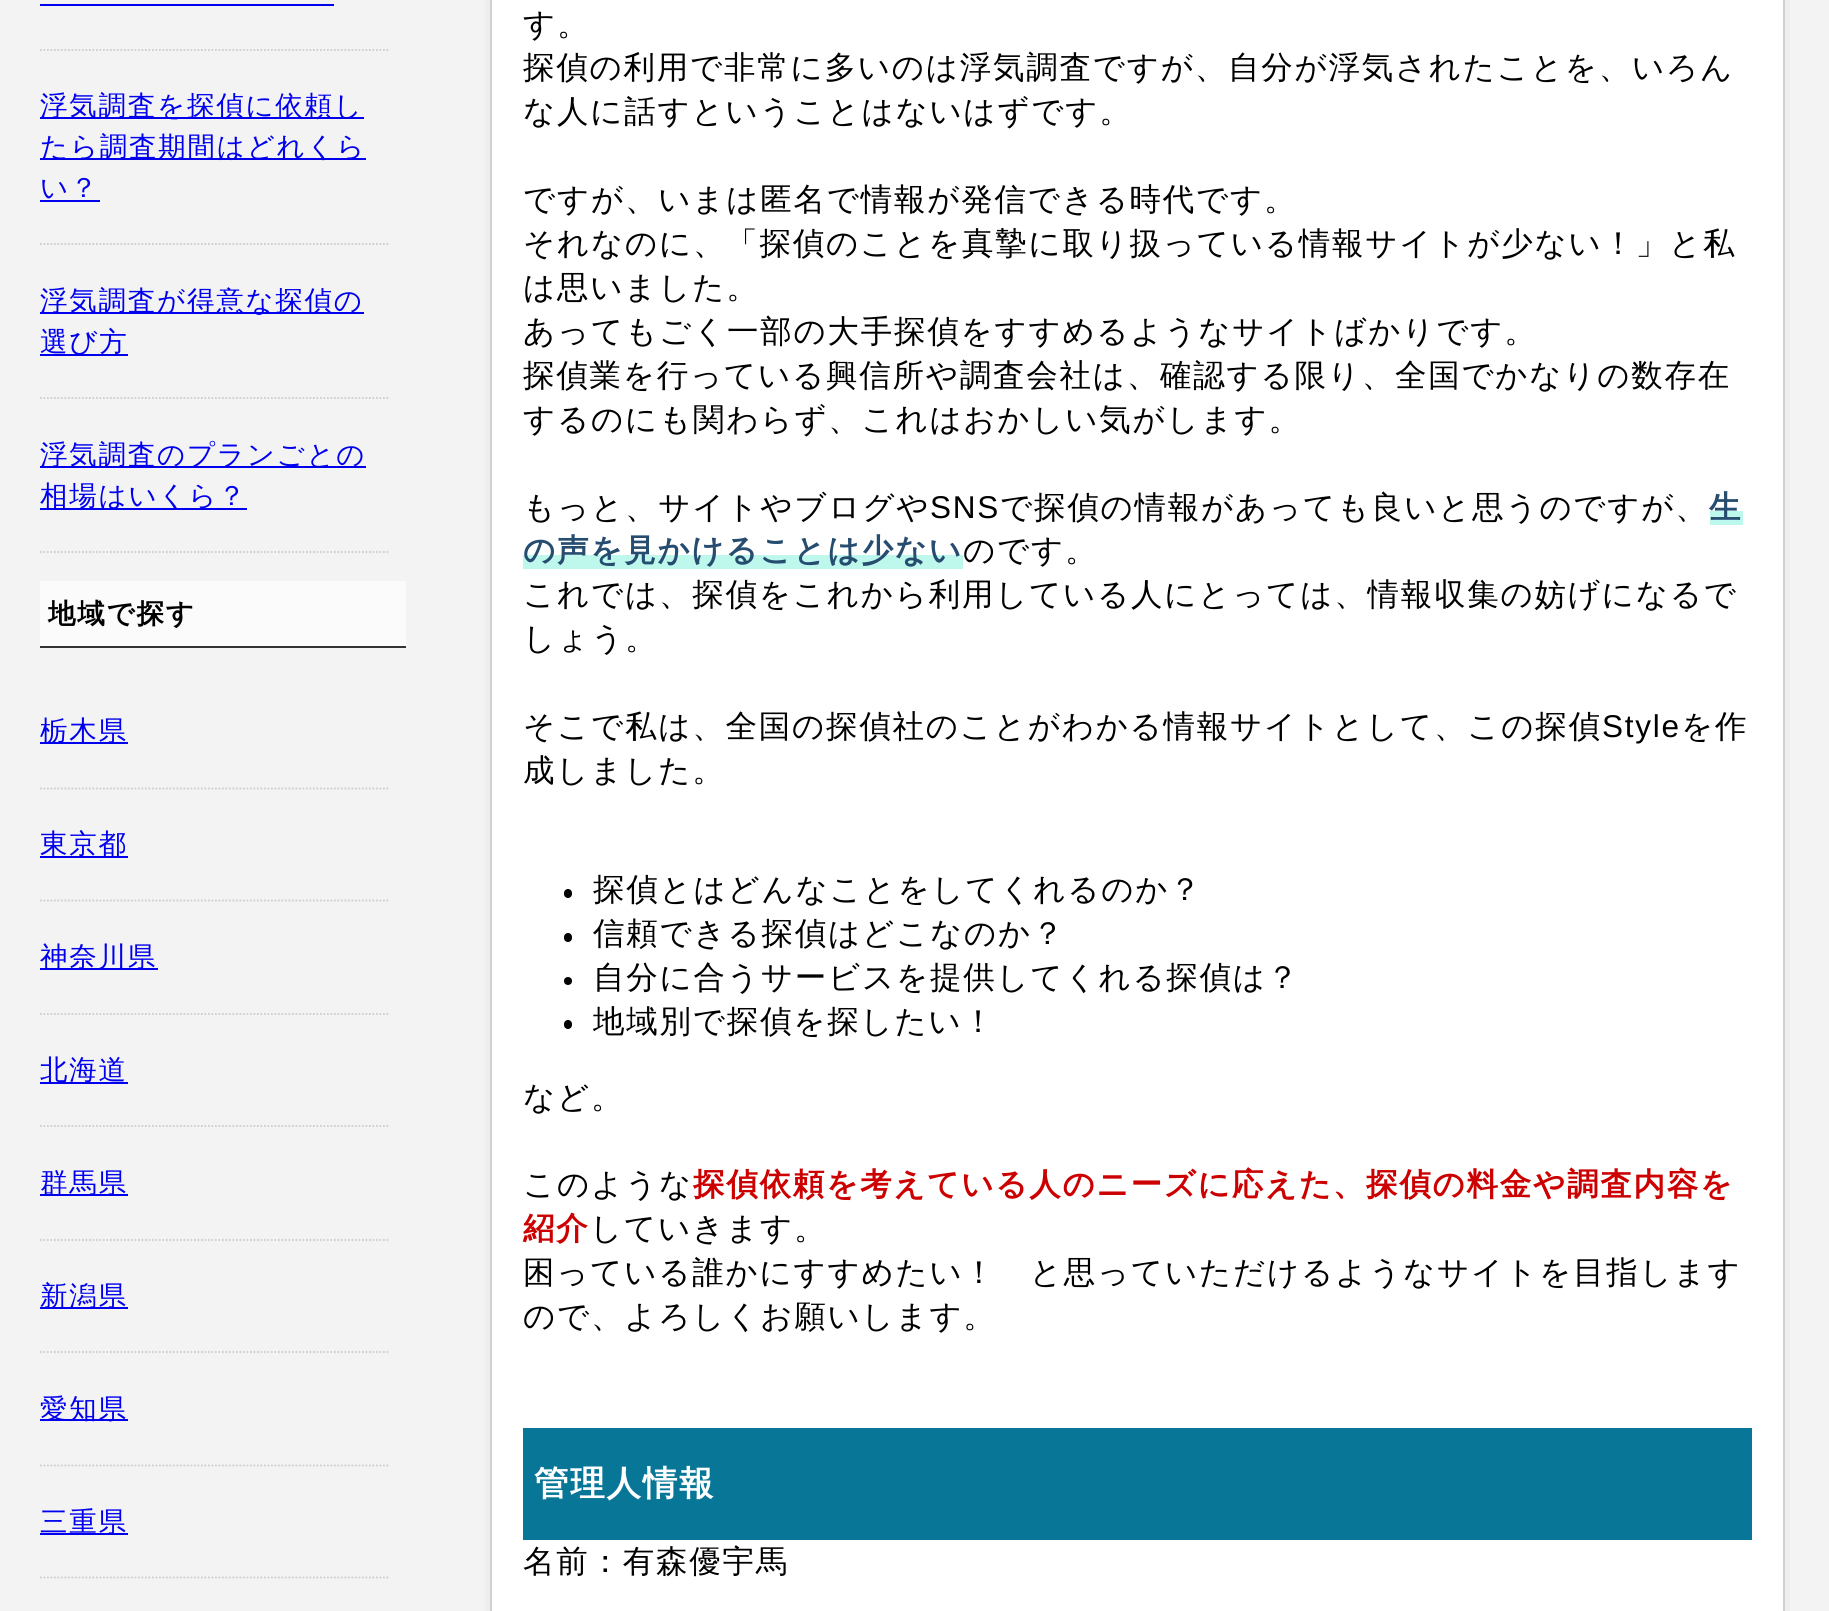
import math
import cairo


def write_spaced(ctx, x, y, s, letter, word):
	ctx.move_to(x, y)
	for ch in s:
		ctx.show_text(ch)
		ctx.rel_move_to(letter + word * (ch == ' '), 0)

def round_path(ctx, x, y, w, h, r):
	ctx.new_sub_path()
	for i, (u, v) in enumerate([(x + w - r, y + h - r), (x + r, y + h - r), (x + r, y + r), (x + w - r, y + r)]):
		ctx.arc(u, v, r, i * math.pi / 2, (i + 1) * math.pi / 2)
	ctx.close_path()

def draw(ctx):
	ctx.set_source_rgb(0.953, 0.953, 0.953)
	ctx.paint()
	ctx.new_path()
	ctx.move_to(40, 50)
	ctx.line_to(390, 50)
	ctx.set_source_rgb(0.8, 0.8, 0.8)
	ctx.set_line_width(1.8)
	ctx.set_dash([1.75, 1.75])
	ctx.stroke()
	ctx.set_source_rgb(0, 0, 0.933)
	ctx.rectangle(40, 4, 294, 2)
	ctx.fill()
	ctx.new_path()
	ctx.move_to(40, 244)
	ctx.line_to(390, 244)
	ctx.set_source_rgb(0.8, 0.8, 0.8)
	ctx.stroke()
	ctx.set_source_rgb(0, 0, 0.933)
	ctx.rectangle(40, 117, 324, 2)
	ctx.fill()
	ctx.select_font_face('WenQuanYi Zen Hei Medium')
	ctx.set_font_size(27.5)
	write_spaced(ctx, 40, 115, '浮気調査を探偵に依頼し', 1.75, 0)
	ctx.rectangle(40, 158, 326, 2)
	ctx.fill()
	write_spaced(ctx, 40, 156, 'たら調査期間はどれくら', 1.75, 0)
	write_spaced(ctx, 40, 197, 'い？', 1.75, 0)
	ctx.rectangle(40, 200, 60, 2)
	ctx.fill()
	ctx.new_path()
	ctx.move_to(40, 398)
	ctx.line_to(390, 398)
	ctx.set_source_rgb(0.8, 0.8, 0.8)
	ctx.stroke()
	ctx.set_source_rgb(0, 0, 0.933)
	ctx.rectangle(40, 312, 324, 2)
	ctx.fill()
	write_spaced(ctx, 40, 310, '浮気調査が得意な探偵の', 1.75, 0)
	ctx.rectangle(40, 354, 88, 2)
	ctx.fill()
	write_spaced(ctx, 40, 351, '選び方', 1.75, 0)
	ctx.new_path()
	ctx.move_to(40, 552)
	ctx.line_to(390, 552)
	ctx.set_source_rgb(0.8, 0.8, 0.8)
	ctx.stroke()
	ctx.set_source_rgb(0, 0, 0.933)
	ctx.rectangle(40, 466, 326, 2)
	ctx.fill()
	write_spaced(ctx, 40, 464, '浮気調査のプランごとの', 1.75, 0)
	ctx.rectangle(40, 508, 207, 2)
	ctx.fill()
	write_spaced(ctx, 40, 505, '相場はいくら？', 1.75, 0)
	ctx.set_source_rgb(0.984, 0.984, 0.984)
	ctx.rectangle(40, 581, 366, 65)
	ctx.fill()
	ctx.set_source_rgb(0.2, 0.2, 0.2)
	ctx.rectangle(40, 646, 366, 2)
	ctx.fill()
	ctx.select_font_face('WenQuanYi Zen Hei', cairo.FONT_SLANT_NORMAL, cairo.FONT_WEIGHT_BOLD)
	ctx.set_source_rgb(0, 0, 0)
	write_spaced(ctx, 48, 623, '地域で探す', 1.75, 0)
	ctx.new_path()
	ctx.move_to(40, 788.5)
	ctx.line_to(390, 788.5)
	ctx.set_source_rgb(0.8, 0.8, 0.8)
	ctx.stroke()
	ctx.set_source_rgb(0, 0, 0.933)
	ctx.rectangle(40, 742, 88, 2)
	ctx.fill()
	ctx.select_font_face('WenQuanYi Zen Hei Medium')
	write_spaced(ctx, 40, 740, '栃木県', 1.75, 0)
	ctx.new_path()
	ctx.move_to(40, 900.5)
	ctx.line_to(390, 900.5)
	ctx.set_source_rgb(0.8, 0.8, 0.8)
	ctx.stroke()
	ctx.set_source_rgb(0, 0, 0.933)
	ctx.rectangle(40, 856, 88, 2)
	ctx.fill()
	write_spaced(ctx, 40, 853, '東京都', 1.75, 0)
	ctx.new_path()
	ctx.move_to(40, 1014)
	ctx.line_to(390, 1014)
	ctx.set_source_rgb(0.8, 0.8, 0.8)
	ctx.stroke()
	ctx.set_source_rgb(0, 0, 0.933)
	ctx.rectangle(40, 968, 118, 2)
	ctx.fill()
	write_spaced(ctx, 40, 966, '神奈川県', 1.75, 0)
	ctx.new_path()
	ctx.move_to(40, 1126)
	ctx.line_to(390, 1126)
	ctx.set_source_rgb(0.8, 0.8, 0.8)
	ctx.stroke()
	ctx.set_source_rgb(0, 0, 0.933)
	ctx.rectangle(40, 1082, 88, 2)
	ctx.fill()
	write_spaced(ctx, 40, 1079, '北海道', 1.75, 0)
	ctx.new_path()
	ctx.move_to(40, 1240)
	ctx.line_to(390, 1240)
	ctx.set_source_rgb(0.8, 0.8, 0.8)
	ctx.stroke()
	ctx.set_source_rgb(0, 0, 0.933)
	ctx.rectangle(40, 1194, 88, 2)
	ctx.fill()
	write_spaced(ctx, 40, 1192, '群馬県', 1.75, 0)
	ctx.new_path()
	ctx.move_to(40, 1352)
	ctx.line_to(390, 1352)
	ctx.set_source_rgb(0.8, 0.8, 0.8)
	ctx.stroke()
	ctx.set_source_rgb(0, 0, 0.933)
	ctx.rectangle(40, 1307, 88, 2)
	ctx.fill()
	write_spaced(ctx, 40, 1305, '新潟県', 1.75, 0)
	ctx.new_path()
	ctx.move_to(40, 1465.5)
	ctx.line_to(390, 1465.5)
	ctx.set_source_rgb(0.8, 0.8, 0.8)
	ctx.stroke()
	ctx.set_source_rgb(0, 0, 0.933)
	ctx.rectangle(40, 1419, 88, 2)
	ctx.fill()
	write_spaced(ctx, 40, 1418, '愛知県', 1.75, 0)
	ctx.new_path()
	ctx.move_to(40, 1577.5)
	ctx.line_to(390, 1577.5)
	ctx.set_source_rgb(0.8, 0.8, 0.8)
	ctx.stroke()
	ctx.set_source_rgb(0, 0, 0.933)
	ctx.rectangle(40, 1533, 88, 2)
	ctx.fill()
	write_spaced(ctx, 40, 1531, '三重県', 1.75, 0)
	ctx.set_source_rgb(0.933, 0.933, 0.933)
	ctx.rectangle(485, 0, 1305, 1611)
	ctx.fill()
	ctx.set_source_rgb(1, 1, 1)
	ctx.rectangle(491, -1, 1293, 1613)
	ctx.fill_preserve()
	ctx.set_source_rgb(0.816, 0.816, 0.816)
	ctx.set_line_width(2)
	ctx.set_dash([])
	ctx.stroke()
	ctx.set_font_size(31.5)
	ctx.set_source_rgb(0, 0, 0)
	for x, y, s in [
		(523, 35, 'す。'),
		(523, 78, '探偵の利用で非常に多いのは浮気調査ですが、自分が浮気されたことを、いろん'),
		(523, 122, 'な人に話すということはないはずです。'),
		(523, 210, 'ですが、いまは匿名で情報が発信できる時代です。'),
		(523, 254, 'それなのに、「探偵のことを真摯に取り扱っている情報サイトが少ない！」と私'),
		(523, 298, 'は思いました。'),
		(523, 342, 'あってもごく一部の大手探偵をすすめるようなサイトばかりです。'),
		(523, 386, '探偵業を行っている興信所や調査会社は、確認する限り、全国でかなりの数存在'),
		(523, 430, 'するのにも関わらず、これはおかしい気がします。'),
		(523, 518, 'もっと、サイトやブログや'),
	]:
		write_spaced(ctx, x, y, s, 1.75, 0)
	ctx.select_font_face('Liberation Sans')
	write_spaced(ctx, 930, 518, 'SNS', 1.75, 0)
	ctx.select_font_face('WenQuanYi Zen Hei Medium')
	write_spaced(ctx, 1000, 518, 'で探偵の情報があっても良いと思うのですが、', 1.75, 0)
	ctx.set_source_rgb(0.745, 0.969, 0.929)
	ctx.rectangle(1710, 511, 33, 14)
	ctx.fill()
	ctx.select_font_face('WenQuanYi Zen Hei', cairo.FONT_SLANT_NORMAL, cairo.FONT_WEIGHT_BOLD)
	ctx.set_source_rgb(0.149, 0.298, 0.439)
	write_spaced(ctx, 1709, 518, '生', 1.75, 0)
	ctx.set_source_rgb(0.745, 0.969, 0.929)
	ctx.rectangle(523, 555, 440, 14)
	ctx.fill()
	ctx.set_source_rgb(0.149, 0.298, 0.439)
	write_spaced(ctx, 523, 561, 'の声を見かけることは少ない', 1.75, 0)
	ctx.select_font_face('WenQuanYi Zen Hei Medium')
	ctx.set_source_rgb(0, 0, 0)
	for x, y, s in [
		(963, 561, 'のです。'),
		(523, 605, 'これでは、探偵をこれから利用している人にとっては、情報収集の妨げになるで'),
		(523, 649, 'しょう。'),
		(523, 737, 'そこで私は、全国の探偵社のことがわかる情報サイトとして、この探偵'),
	]:
		write_spaced(ctx, x, y, s, 1.75, 0)
	ctx.select_font_face('Liberation Sans')
	write_spaced(ctx, 1602, 737, 'Style', 1.75, 0)
	ctx.select_font_face('WenQuanYi Zen Hei Medium')
	write_spaced(ctx, 1681, 737, 'を作', 1.75, 0)
	write_spaced(ctx, 523, 781, '成しました。', 1.75, 0)
	round_path(ctx, 564, 889, 8, 9, 4)
	ctx.fill()
	write_spaced(ctx, 593, 900, '探偵とはどんなことをしてくれるのか？', 1.75, 0)
	round_path(ctx, 564, 933, 8, 9, 4)
	ctx.fill()
	write_spaced(ctx, 593, 944, '信頼できる探偵はどこなのか？', 1.75, 0)
	ctx.new_path()
	ctx.arc(568, 981, 4, 0, 2 * math.pi)
	ctx.fill()
	write_spaced(ctx, 593, 988, '自分に合うサービスを提供してくれる探偵は？', 1.75, 0)
	round_path(ctx, 564, 1020, 8, 9, 4)
	ctx.fill()
	for x, y, s in [
		(593, 1032, '地域別で探偵を探したい！'),
		(523, 1108, 'など。'),
		(523, 1195, 'このような'),
	]:
		write_spaced(ctx, x, y, s, 1.75, 0)
	ctx.select_font_face('WenQuanYi Zen Hei', cairo.FONT_SLANT_NORMAL, cairo.FONT_WEIGHT_BOLD)
	ctx.set_source_rgb(0.8, 0, 0)
	write_spaced(ctx, 693, 1195, '探偵依頼を考えている人のニーズに応えた、探偵の料金や調査内容を', 1.75, 0)
	write_spaced(ctx, 523, 1239, '紹介', 1.75, 0)
	ctx.select_font_face('WenQuanYi Zen Hei Medium')
	ctx.set_source_rgb(0, 0, 0)
	for x, y, s in [
		(590, 1239, 'していきます。'),
		(523, 1283, '困っている誰かにすすめたい！　と思っていただけるようなサイトを目指します'),
		(523, 1327, 'ので、よろしくお願いします。'),
	]:
		write_spaced(ctx, x, y, s, 1.75, 0)
	ctx.set_source_rgb(0.035, 0.463, 0.592)
	ctx.rectangle(523, 1428, 1229, 112)
	ctx.fill()
	ctx.select_font_face('WenQuanYi Zen Hei', cairo.FONT_SLANT_NORMAL, cairo.FONT_WEIGHT_BOLD)
	ctx.set_font_size(34.5)
	ctx.set_source_rgb(1, 1, 1)
	write_spaced(ctx, 534, 1495, '管理人情報', 1.75, 0)
	ctx.select_font_face('WenQuanYi Zen Hei Medium')
	ctx.set_font_size(31.5)
	ctx.set_source_rgb(0, 0, 0)
	write_spaced(ctx, 523, 1572, '名前：有森優宇馬', 1.75, 0)


surface = cairo.ImageSurface(cairo.FORMAT_RGB24, 1829, 1611)
ctx = cairo.Context(surface)
options = cairo.FontOptions()
options.set_hint_metrics(cairo.HINT_METRICS_OFF)
options.set_hint_style(cairo.HINT_STYLE_NONE)
ctx.set_font_options(options)
ctx.set_miter_limit(4)
draw(ctx)
surface.write_to_png('image.png')
